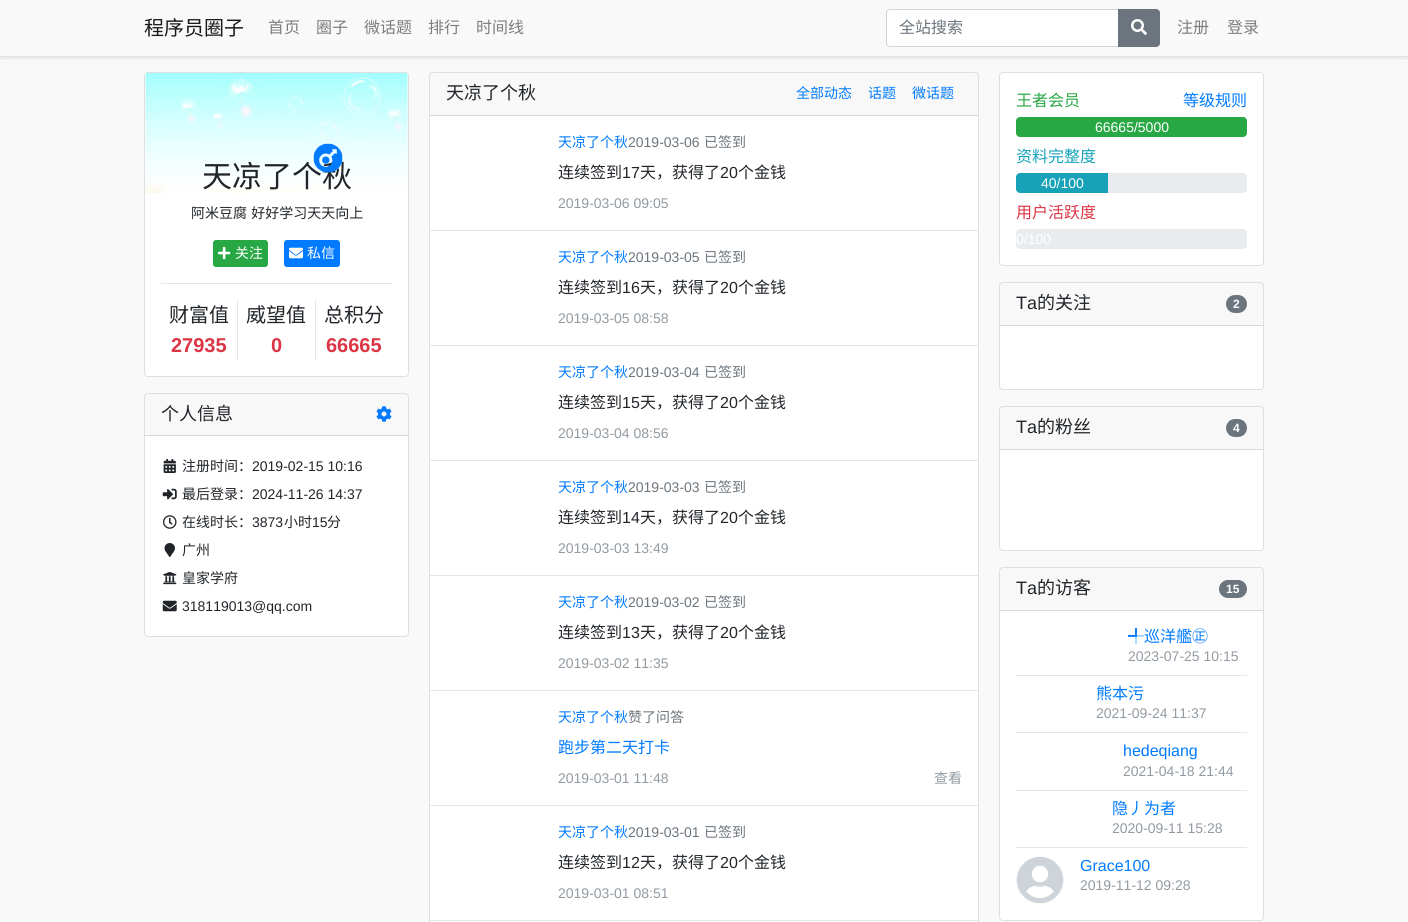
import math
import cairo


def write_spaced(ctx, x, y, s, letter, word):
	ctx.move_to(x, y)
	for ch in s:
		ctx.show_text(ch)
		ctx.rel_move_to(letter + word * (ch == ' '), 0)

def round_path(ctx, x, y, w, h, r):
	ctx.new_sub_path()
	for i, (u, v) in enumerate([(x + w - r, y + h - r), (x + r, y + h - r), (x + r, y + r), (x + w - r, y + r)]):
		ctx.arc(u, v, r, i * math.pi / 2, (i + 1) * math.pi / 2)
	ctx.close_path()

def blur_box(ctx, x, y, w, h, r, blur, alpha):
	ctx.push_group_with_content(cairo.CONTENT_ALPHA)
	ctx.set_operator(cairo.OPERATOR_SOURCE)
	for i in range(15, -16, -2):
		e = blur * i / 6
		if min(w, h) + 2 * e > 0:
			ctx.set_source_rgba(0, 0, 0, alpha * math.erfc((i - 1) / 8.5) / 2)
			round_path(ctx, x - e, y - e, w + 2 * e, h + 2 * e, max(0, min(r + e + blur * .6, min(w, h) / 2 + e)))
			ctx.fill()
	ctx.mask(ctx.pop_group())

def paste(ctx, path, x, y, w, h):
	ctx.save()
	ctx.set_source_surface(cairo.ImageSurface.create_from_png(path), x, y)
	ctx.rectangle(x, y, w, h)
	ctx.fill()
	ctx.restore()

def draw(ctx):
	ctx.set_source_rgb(0.973, 0.976, 0.98)
	ctx.paint()
	ctx.save()
	ctx.rectangle(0, 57, 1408, 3)
	ctx.clip()
	ctx.set_source_rgb(0, 0, 0)
	blur_box(ctx, 0, 2, 1408, 57, 0, 2, 0.07)
	ctx.restore()
	ctx.set_source_rgb(0.871, 0.886, 0.902)
	ctx.rectangle(0, 56, 1408, 1)
	ctx.fill()
	ctx.select_font_face('Noto Sans CJK SC')
	ctx.set_font_size(20)
	ctx.set_source_rgb(0.098, 0.098, 0.098)
	ctx.move_to(144, 35)
	ctx.show_text('程序员圈子')
	ctx.set_font_size(16)
	ctx.set_source_rgb(0.486, 0.49, 0.49)
	for x, y, s in [
		(268, 33, '首页'),
		(316, 33, '圈子'),
		(364, 33, '微话题'),
		(428, 33, '排行'),
		(476, 33, '时间线'),
	]:
		ctx.move_to(x, y)
		ctx.show_text(s)
	ctx.set_source_rgb(1, 1, 1)
	ctx.new_path()
	ctx.move_to(890, 9.5)
	ctx.line_to(1118.5, 9.5)
	ctx.line_to(1118.5, 46.5)
	ctx.line_to(890, 46.5)
	ctx.curve_to(888, 46.5, 886.5, 45, 886.5, 43)
	ctx.line_to(886.5, 13)
	ctx.curve_to(886.5, 11, 888, 9.5, 890, 9.5)
	ctx.close_path()
	ctx.fill_preserve()
	ctx.set_source_rgb(0.808, 0.831, 0.855)
	ctx.set_line_width(1)
	ctx.stroke()
	ctx.set_source_rgb(0.424, 0.459, 0.49)
	ctx.move_to(899, 33)
	ctx.show_text('全站搜索')
	ctx.new_path()
	ctx.move_to(1118.5, 9.5)
	ctx.line_to(1156, 9.5)
	ctx.curve_to(1158, 9.5, 1159.5, 11, 1159.5, 13)
	ctx.line_to(1159.5, 43)
	ctx.curve_to(1159.5, 45, 1158, 46.5, 1156, 46.5)
	ctx.line_to(1118.5, 46.5)
	ctx.close_path()
	ctx.fill_preserve()
	ctx.stroke()
	paste(ctx, 'media/1.png', 1131, 19, 16, 16)
	ctx.set_source_rgb(0.486, 0.49, 0.49)
	ctx.move_to(1177, 33)
	ctx.show_text('注册')
	ctx.move_to(1227, 33)
	ctx.show_text('登录')
	ctx.set_source_rgb(1, 1, 1)
	round_path(ctx, 144.5, 72.5, 264, 304, 3.5)
	ctx.fill_preserve()
	ctx.set_source_rgb(0.875, 0.875, 0.875)
	ctx.stroke()
	paste(ctx, 'media/2.png', 145, 73, 263, 120)
	ctx.set_font_size(30)
	ctx.set_source_rgb(0.129, 0.145, 0.161)
	ctx.move_to(202, 187)
	ctx.show_text('天凉了个秋')
	paste(ctx, 'media/3.png', 313, 143, 30, 30)
	ctx.set_font_size(14)
	write_spaced(ctx, 191, 218, '阿米豆腐 好好学习天天向上', 0, 1)
	ctx.set_source_rgb(0.157, 0.655, 0.271)
	round_path(ctx, 213.5, 240.5, 54, 26, 2.5)
	ctx.fill_preserve()
	ctx.stroke()
	paste(ctx, 'media/4.png', 218, 246, 13, 14)
	ctx.set_source_rgb(1, 1, 1)
	ctx.move_to(235, 258)
	ctx.show_text('关注')
	ctx.set_source_rgb(0, 0.482, 1)
	round_path(ctx, 284.5, 240.5, 55, 26, 2.5)
	ctx.fill_preserve()
	ctx.stroke()
	paste(ctx, 'media/5.png', 289, 247, 14, 12)
	ctx.set_source_rgb(1, 1, 1)
	ctx.move_to(307, 258)
	ctx.show_text('私信')
	ctx.set_source_rgb(0.902, 0.902, 0.902)
	ctx.rectangle(161, 283, 231, 1)
	ctx.fill()
	ctx.rectangle(237, 300, 1, 60)
	ctx.fill()
	ctx.set_font_size(20)
	ctx.set_source_rgb(0.129, 0.145, 0.161)
	ctx.move_to(169, 322)
	ctx.show_text('财富值')
	ctx.select_font_face('Liberation Sans', cairo.FONT_SLANT_NORMAL, cairo.FONT_WEIGHT_BOLD)
	ctx.set_source_rgb(0.863, 0.208, 0.271)
	ctx.move_to(171, 352)
	ctx.show_text('27935')
	ctx.set_source_rgb(0.902, 0.902, 0.902)
	ctx.rectangle(315, 300, 1, 60)
	ctx.fill()
	ctx.select_font_face('Noto Sans CJK SC')
	ctx.set_source_rgb(0.129, 0.145, 0.161)
	ctx.move_to(246, 322)
	ctx.show_text('威望值')
	ctx.select_font_face('Liberation Sans', cairo.FONT_SLANT_NORMAL, cairo.FONT_WEIGHT_BOLD)
	ctx.set_source_rgb(0.863, 0.208, 0.271)
	ctx.move_to(271, 352)
	ctx.show_text('0')
	ctx.select_font_face('Noto Sans CJK SC')
	ctx.set_source_rgb(0.129, 0.145, 0.161)
	ctx.move_to(324, 322)
	ctx.show_text('总积分')
	ctx.select_font_face('Liberation Sans', cairo.FONT_SLANT_NORMAL, cairo.FONT_WEIGHT_BOLD)
	ctx.set_source_rgb(0.863, 0.208, 0.271)
	ctx.move_to(326, 352)
	ctx.show_text('66665')
	ctx.set_source_rgb(1, 1, 1)
	round_path(ctx, 144.5, 393.5, 264, 243, 3.5)
	ctx.fill_preserve()
	ctx.set_source_rgb(0.875, 0.875, 0.875)
	ctx.stroke()
	ctx.set_source_rgba(0, 0, 0, 0.03)
	ctx.rectangle(145, 394, 263, 41)
	ctx.fill()
	ctx.set_source_rgb(0.847, 0.847, 0.847)
	ctx.rectangle(145, 435, 263, 1)
	ctx.fill()
	ctx.select_font_face('Noto Sans CJK SC')
	ctx.set_font_size(18)
	ctx.set_source_rgb(0.129, 0.145, 0.161)
	ctx.move_to(161, 420)
	ctx.show_text('个人信息')
	paste(ctx, 'media/6.png', 376, 406, 16, 16)
	paste(ctx, 'media/7.png', 163, 459, 13, 14)
	ctx.set_font_size(14)
	ctx.move_to(182, 471)
	ctx.show_text('注册时间：')
	ctx.select_font_face('Liberation Sans')
	ctx.move_to(252, 471)
	ctx.show_text('2019-02-15 10:16')
	paste(ctx, 'media/8.png', 162, 488, 15, 12)
	ctx.select_font_face('Noto Sans CJK SC')
	ctx.move_to(182, 499)
	ctx.show_text('最后登录：')
	ctx.select_font_face('Liberation Sans')
	ctx.move_to(252, 499)
	ctx.show_text('2024-11-26 14:37')
	paste(ctx, 'media/9.png', 163, 515, 14, 14)
	ctx.select_font_face('Noto Sans CJK SC')
	ctx.move_to(182, 527)
	ctx.show_text('在线时长：')
	ctx.select_font_face('Liberation Sans')
	ctx.move_to(252, 527)
	ctx.show_text('3873')
	ctx.select_font_face('Noto Sans CJK SC')
	ctx.move_to(284, 527)
	ctx.show_text('小时')
	ctx.select_font_face('Liberation Sans')
	ctx.move_to(312, 527)
	ctx.show_text('15')
	ctx.select_font_face('Noto Sans CJK SC')
	ctx.move_to(327, 527)
	ctx.show_text('分')
	paste(ctx, 'media/10.png', 164, 543, 11, 14)
	ctx.move_to(182, 555)
	ctx.show_text('广州')
	paste(ctx, 'media/11.png', 163, 571, 14, 14)
	ctx.move_to(182, 583)
	ctx.show_text('皇家学府')
	paste(ctx, 'media/12.png', 162, 600, 15, 12)
	ctx.select_font_face('Liberation Sans')
	ctx.move_to(182, 611)
	ctx.show_text('318119013@qq.com')
	ctx.set_source_rgb(1, 1, 1)
	round_path(ctx, 429.5, 72.5, 549, 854, 3.5)
	ctx.fill_preserve()
	ctx.set_source_rgb(0.875, 0.875, 0.875)
	ctx.stroke()
	ctx.set_source_rgba(0, 0, 0, 0.03)
	ctx.rectangle(430, 73, 548, 42)
	ctx.fill()
	ctx.set_source_rgb(0.847, 0.847, 0.847)
	ctx.rectangle(430, 115, 548, 1)
	ctx.fill()
	ctx.select_font_face('Noto Sans CJK SC')
	ctx.set_font_size(18)
	ctx.set_source_rgb(0.129, 0.145, 0.161)
	ctx.move_to(446, 99)
	ctx.show_text('天凉了个秋')
	ctx.set_font_size(14)
	ctx.set_source_rgb(0, 0.482, 1)
	for x, y, s in [
		(796, 98, '全部动态'),
		(868, 98, '话题'),
		(912, 98, '微话题'),
	]:
		ctx.move_to(x, y)
		ctx.show_text(s)
	ctx.set_source_rgb(0.902, 0.902, 0.902)
	ctx.rectangle(430, 230, 548, 1)
	ctx.fill()
	ctx.set_source_rgb(0, 0.482, 1)
	ctx.move_to(558, 147)
	ctx.show_text('天凉了个秋')
	ctx.select_font_face('Liberation Sans')
	ctx.set_source_rgb(0.424, 0.459, 0.49)
	ctx.move_to(628, 147)
	ctx.show_text('2019-03-06')
	ctx.select_font_face('Noto Sans CJK SC')
	ctx.move_to(704, 147)
	ctx.show_text('已签到')
	ctx.set_font_size(16)
	ctx.set_source_rgb(0.129, 0.145, 0.161)
	ctx.move_to(558, 178)
	ctx.show_text('连续签到')
	ctx.select_font_face('Liberation Sans')
	ctx.move_to(622, 178)
	ctx.show_text('17')
	ctx.select_font_face('Noto Sans CJK SC')
	ctx.move_to(640, 178)
	ctx.show_text('天，获得了')
	ctx.select_font_face('Liberation Sans')
	ctx.move_to(720, 178)
	ctx.show_text('20')
	ctx.select_font_face('Noto Sans CJK SC')
	ctx.move_to(738, 178)
	ctx.show_text('个金钱')
	ctx.select_font_face('Liberation Sans')
	ctx.set_font_size(14)
	ctx.set_source_rgb(0.576, 0.608, 0.635)
	ctx.move_to(558, 208)
	ctx.show_text('2019-03-06 09:05')
	ctx.set_source_rgb(0.902, 0.902, 0.902)
	ctx.rectangle(430, 345, 548, 1)
	ctx.fill()
	ctx.select_font_face('Noto Sans CJK SC')
	ctx.set_source_rgb(0, 0.482, 1)
	ctx.move_to(558, 262)
	ctx.show_text('天凉了个秋')
	ctx.select_font_face('Liberation Sans')
	ctx.set_source_rgb(0.424, 0.459, 0.49)
	ctx.move_to(628, 262)
	ctx.show_text('2019-03-05')
	ctx.select_font_face('Noto Sans CJK SC')
	ctx.move_to(704, 262)
	ctx.show_text('已签到')
	ctx.set_font_size(16)
	ctx.set_source_rgb(0.129, 0.145, 0.161)
	ctx.move_to(558, 293)
	ctx.show_text('连续签到')
	ctx.select_font_face('Liberation Sans')
	ctx.move_to(622, 293)
	ctx.show_text('16')
	ctx.select_font_face('Noto Sans CJK SC')
	ctx.move_to(640, 293)
	ctx.show_text('天，获得了')
	ctx.select_font_face('Liberation Sans')
	ctx.move_to(720, 293)
	ctx.show_text('20')
	ctx.select_font_face('Noto Sans CJK SC')
	ctx.move_to(738, 293)
	ctx.show_text('个金钱')
	ctx.select_font_face('Liberation Sans')
	ctx.set_font_size(14)
	ctx.set_source_rgb(0.576, 0.608, 0.635)
	ctx.move_to(558, 323)
	ctx.show_text('2019-03-05 08:58')
	ctx.set_source_rgb(0.902, 0.902, 0.902)
	ctx.rectangle(430, 460, 548, 1)
	ctx.fill()
	ctx.select_font_face('Noto Sans CJK SC')
	ctx.set_source_rgb(0, 0.482, 1)
	ctx.move_to(558, 377)
	ctx.show_text('天凉了个秋')
	ctx.select_font_face('Liberation Sans')
	ctx.set_source_rgb(0.424, 0.459, 0.49)
	ctx.move_to(628, 377)
	ctx.show_text('2019-03-04')
	ctx.select_font_face('Noto Sans CJK SC')
	ctx.move_to(704, 377)
	ctx.show_text('已签到')
	ctx.set_font_size(16)
	ctx.set_source_rgb(0.129, 0.145, 0.161)
	ctx.move_to(558, 408)
	ctx.show_text('连续签到')
	ctx.select_font_face('Liberation Sans')
	ctx.move_to(622, 408)
	ctx.show_text('15')
	ctx.select_font_face('Noto Sans CJK SC')
	ctx.move_to(640, 408)
	ctx.show_text('天，获得了')
	ctx.select_font_face('Liberation Sans')
	ctx.move_to(720, 408)
	ctx.show_text('20')
	ctx.select_font_face('Noto Sans CJK SC')
	ctx.move_to(738, 408)
	ctx.show_text('个金钱')
	ctx.select_font_face('Liberation Sans')
	ctx.set_font_size(14)
	ctx.set_source_rgb(0.576, 0.608, 0.635)
	ctx.move_to(558, 438)
	ctx.show_text('2019-03-04 08:56')
	ctx.set_source_rgb(0.902, 0.902, 0.902)
	ctx.rectangle(430, 575, 548, 1)
	ctx.fill()
	ctx.select_font_face('Noto Sans CJK SC')
	ctx.set_source_rgb(0, 0.482, 1)
	ctx.move_to(558, 492)
	ctx.show_text('天凉了个秋')
	ctx.select_font_face('Liberation Sans')
	ctx.set_source_rgb(0.424, 0.459, 0.49)
	ctx.move_to(628, 492)
	ctx.show_text('2019-03-03')
	ctx.select_font_face('Noto Sans CJK SC')
	ctx.move_to(704, 492)
	ctx.show_text('已签到')
	ctx.set_font_size(16)
	ctx.set_source_rgb(0.129, 0.145, 0.161)
	ctx.move_to(558, 523)
	ctx.show_text('连续签到')
	ctx.select_font_face('Liberation Sans')
	ctx.move_to(622, 523)
	ctx.show_text('14')
	ctx.select_font_face('Noto Sans CJK SC')
	ctx.move_to(640, 523)
	ctx.show_text('天，获得了')
	ctx.select_font_face('Liberation Sans')
	ctx.move_to(720, 523)
	ctx.show_text('20')
	ctx.select_font_face('Noto Sans CJK SC')
	ctx.move_to(738, 523)
	ctx.show_text('个金钱')
	ctx.select_font_face('Liberation Sans')
	ctx.set_font_size(14)
	ctx.set_source_rgb(0.576, 0.608, 0.635)
	ctx.move_to(558, 553)
	ctx.show_text('2019-03-03 13:49')
	ctx.set_source_rgb(0.902, 0.902, 0.902)
	ctx.rectangle(430, 690, 548, 1)
	ctx.fill()
	ctx.select_font_face('Noto Sans CJK SC')
	ctx.set_source_rgb(0, 0.482, 1)
	ctx.move_to(558, 607)
	ctx.show_text('天凉了个秋')
	ctx.select_font_face('Liberation Sans')
	ctx.set_source_rgb(0.424, 0.459, 0.49)
	ctx.move_to(628, 607)
	ctx.show_text('2019-03-02')
	ctx.select_font_face('Noto Sans CJK SC')
	ctx.move_to(704, 607)
	ctx.show_text('已签到')
	ctx.set_font_size(16)
	ctx.set_source_rgb(0.129, 0.145, 0.161)
	ctx.move_to(558, 638)
	ctx.show_text('连续签到')
	ctx.select_font_face('Liberation Sans')
	ctx.move_to(622, 638)
	ctx.show_text('13')
	ctx.select_font_face('Noto Sans CJK SC')
	ctx.move_to(640, 638)
	ctx.show_text('天，获得了')
	ctx.select_font_face('Liberation Sans')
	ctx.move_to(720, 638)
	ctx.show_text('20')
	ctx.select_font_face('Noto Sans CJK SC')
	ctx.move_to(738, 638)
	ctx.show_text('个金钱')
	ctx.select_font_face('Liberation Sans')
	ctx.set_font_size(14)
	ctx.set_source_rgb(0.576, 0.608, 0.635)
	ctx.move_to(558, 668)
	ctx.show_text('2019-03-02 11:35')
	ctx.set_source_rgb(0.902, 0.902, 0.902)
	ctx.rectangle(430, 805, 548, 1)
	ctx.fill()
	ctx.select_font_face('Noto Sans CJK SC')
	ctx.set_source_rgb(0, 0.482, 1)
	ctx.move_to(558, 722)
	ctx.show_text('天凉了个秋')
	ctx.set_source_rgb(0.424, 0.459, 0.49)
	ctx.move_to(628, 722)
	ctx.show_text('赞了问答')
	ctx.set_font_size(16)
	ctx.set_source_rgb(0, 0.482, 1)
	ctx.move_to(558, 753)
	ctx.show_text('跑步第二天打卡')
	ctx.select_font_face('Liberation Sans')
	ctx.set_font_size(14)
	ctx.set_source_rgb(0.576, 0.608, 0.635)
	ctx.move_to(558, 783)
	ctx.show_text('2019-03-01 11:48')
	ctx.select_font_face('Noto Sans CJK SC')
	ctx.move_to(934, 783)
	ctx.show_text('查看')
	ctx.set_source_rgb(0.902, 0.902, 0.902)
	ctx.rectangle(430, 920, 548, 1)
	ctx.fill()
	ctx.set_source_rgb(0, 0.482, 1)
	ctx.move_to(558, 837)
	ctx.show_text('天凉了个秋')
	ctx.select_font_face('Liberation Sans')
	ctx.set_source_rgb(0.424, 0.459, 0.49)
	ctx.move_to(628, 837)
	ctx.show_text('2019-03-01')
	ctx.select_font_face('Noto Sans CJK SC')
	ctx.move_to(704, 837)
	ctx.show_text('已签到')
	ctx.set_font_size(16)
	ctx.set_source_rgb(0.129, 0.145, 0.161)
	ctx.move_to(558, 868)
	ctx.show_text('连续签到')
	ctx.select_font_face('Liberation Sans')
	ctx.move_to(622, 868)
	ctx.show_text('12')
	ctx.select_font_face('Noto Sans CJK SC')
	ctx.move_to(640, 868)
	ctx.show_text('天，获得了')
	ctx.select_font_face('Liberation Sans')
	ctx.move_to(720, 868)
	ctx.show_text('20')
	ctx.select_font_face('Noto Sans CJK SC')
	ctx.move_to(738, 868)
	ctx.show_text('个金钱')
	ctx.select_font_face('Liberation Sans')
	ctx.set_font_size(14)
	ctx.set_source_rgb(0.576, 0.608, 0.635)
	ctx.move_to(558, 898)
	ctx.show_text('2019-03-01 08:51')
	ctx.set_source_rgb(1, 1, 1)
	round_path(ctx, 999.5, 72.5, 264, 193, 3.5)
	ctx.fill_preserve()
	ctx.set_source_rgb(0.875, 0.875, 0.875)
	ctx.stroke()
	ctx.select_font_face('Noto Sans CJK SC')
	ctx.set_font_size(16)
	ctx.set_source_rgb(0.157, 0.655, 0.271)
	ctx.move_to(1016, 106)
	ctx.show_text('王者会员')
	ctx.set_source_rgb(0, 0.482, 1)
	ctx.move_to(1183, 106)
	ctx.show_text('等级规则')
	ctx.set_source_rgb(0.157, 0.655, 0.271)
	round_path(ctx, 1016, 117, 231, 20, 4)
	ctx.fill()
	ctx.select_font_face('Liberation Sans')
	ctx.set_font_size(14)
	ctx.set_source_rgb(1, 1, 1)
	ctx.move_to(1095, 132)
	ctx.show_text('66665/5000')
	ctx.select_font_face('Noto Sans CJK SC')
	ctx.set_font_size(16)
	ctx.set_source_rgb(0.09, 0.635, 0.722)
	ctx.move_to(1016, 162)
	ctx.show_text('资料完整度')
	ctx.set_source_rgb(0.914, 0.925, 0.937)
	round_path(ctx, 1016, 173, 231, 20, 4)
	ctx.fill()
	ctx.set_source_rgb(0.09, 0.635, 0.722)
	ctx.new_path()
	ctx.move_to(1020, 173)
	ctx.line_to(1108, 173)
	ctx.line_to(1108, 193)
	ctx.line_to(1020, 193)
	ctx.curve_to(1018, 193, 1016, 191, 1016, 189)
	ctx.line_to(1016, 177)
	ctx.curve_to(1016, 175, 1018, 173, 1020, 173)
	ctx.close_path()
	ctx.fill()
	ctx.select_font_face('Liberation Sans')
	ctx.set_font_size(14)
	ctx.set_source_rgb(1, 1, 1)
	ctx.move_to(1041, 188)
	ctx.show_text('40/100')
	ctx.select_font_face('Noto Sans CJK SC')
	ctx.set_font_size(16)
	ctx.set_source_rgb(0.863, 0.208, 0.271)
	ctx.move_to(1016, 218)
	ctx.show_text('用户活跃度')
	ctx.set_source_rgb(0.914, 0.925, 0.937)
	round_path(ctx, 1016, 229, 231, 20, 4)
	ctx.fill()
	ctx.select_font_face('Liberation Sans')
	ctx.set_font_size(14)
	ctx.set_source_rgb(1, 1, 1)
	ctx.move_to(1016, 244)
	ctx.show_text('0/100')
	round_path(ctx, 999.5, 282.5, 264, 107, 3.5)
	ctx.fill_preserve()
	ctx.set_source_rgb(0.875, 0.875, 0.875)
	ctx.stroke()
	ctx.set_source_rgba(0, 0, 0, 0.03)
	ctx.rectangle(1000, 283, 263, 42)
	ctx.fill()
	ctx.set_source_rgb(0.847, 0.847, 0.847)
	ctx.rectangle(1000, 325, 263, 1)
	ctx.fill()
	ctx.set_font_size(18)
	ctx.set_source_rgb(0.129, 0.145, 0.161)
	ctx.move_to(1016, 309)
	ctx.show_text('Ta')
	ctx.select_font_face('Noto Sans CJK SC')
	ctx.move_to(1037, 309)
	ctx.show_text('的关注')
	ctx.set_source_rgb(0.424, 0.459, 0.49)
	round_path(ctx, 1226, 295, 21, 18, 9)
	ctx.fill()
	ctx.select_font_face('Liberation Sans', cairo.FONT_SLANT_NORMAL, cairo.FONT_WEIGHT_BOLD)
	ctx.set_font_size(12)
	ctx.set_source_rgb(1, 1, 1)
	ctx.move_to(1233, 308)
	ctx.show_text('2')
	round_path(ctx, 999.5, 406.5, 264, 144, 3.5)
	ctx.fill_preserve()
	ctx.set_source_rgb(0.875, 0.875, 0.875)
	ctx.stroke()
	ctx.set_source_rgba(0, 0, 0, 0.03)
	ctx.rectangle(1000, 407, 263, 42)
	ctx.fill()
	ctx.set_source_rgb(0.847, 0.847, 0.847)
	ctx.rectangle(1000, 449, 263, 1)
	ctx.fill()
	ctx.select_font_face('Liberation Sans')
	ctx.set_font_size(18)
	ctx.set_source_rgb(0.129, 0.145, 0.161)
	ctx.move_to(1016, 433)
	ctx.show_text('Ta')
	ctx.select_font_face('Noto Sans CJK SC')
	ctx.move_to(1037, 433)
	ctx.show_text('的粉丝')
	ctx.set_source_rgb(0.424, 0.459, 0.49)
	round_path(ctx, 1226, 419, 21, 18, 9)
	ctx.fill()
	ctx.select_font_face('Liberation Sans', cairo.FONT_SLANT_NORMAL, cairo.FONT_WEIGHT_BOLD)
	ctx.set_font_size(12)
	ctx.set_source_rgb(1, 1, 1)
	ctx.move_to(1233, 432)
	ctx.show_text('4')
	round_path(ctx, 999.5, 567.5, 264, 353, 3.5)
	ctx.fill_preserve()
	ctx.set_source_rgb(0.875, 0.875, 0.875)
	ctx.stroke()
	ctx.set_source_rgba(0, 0, 0, 0.03)
	ctx.rectangle(1000, 568, 263, 42)
	ctx.fill()
	ctx.set_source_rgb(0.847, 0.847, 0.847)
	ctx.rectangle(1000, 610, 263, 1)
	ctx.fill()
	ctx.select_font_face('Liberation Sans')
	ctx.set_font_size(18)
	ctx.set_source_rgb(0.129, 0.145, 0.161)
	ctx.move_to(1016, 594)
	ctx.show_text('Ta')
	ctx.select_font_face('Noto Sans CJK SC')
	ctx.move_to(1037, 594)
	ctx.show_text('的访客')
	ctx.set_source_rgb(0.424, 0.459, 0.49)
	round_path(ctx, 1219, 580, 28, 18, 9)
	ctx.fill()
	ctx.select_font_face('Liberation Sans', cairo.FONT_SLANT_NORMAL, cairo.FONT_WEIGHT_BOLD)
	ctx.set_font_size(12)
	ctx.set_source_rgb(1, 1, 1)
	ctx.move_to(1226, 593)
	ctx.show_text('15')
	ctx.set_source_rgb(0.902, 0.902, 0.902)
	ctx.rectangle(1016, 675, 231, 1)
	ctx.fill()
	ctx.select_font_face('Noto Sans CJK SC')
	ctx.set_font_size(16)
	ctx.set_source_rgb(0, 0.482, 1)
	ctx.move_to(1128, 642)
	ctx.show_text('╃巡洋艦㊣')
	ctx.select_font_face('Liberation Sans')
	ctx.set_font_size(14)
	ctx.set_source_rgb(0.576, 0.608, 0.635)
	ctx.move_to(1128, 661)
	ctx.show_text('2023-07-25 10:15')
	ctx.set_source_rgb(0.902, 0.902, 0.902)
	ctx.rectangle(1016, 732, 231, 1)
	ctx.fill()
	ctx.select_font_face('Noto Sans CJK SC')
	ctx.set_font_size(16)
	ctx.set_source_rgb(0, 0.482, 1)
	ctx.move_to(1096, 699)
	ctx.show_text('熊本污')
	ctx.select_font_face('Liberation Sans')
	ctx.set_font_size(14)
	ctx.set_source_rgb(0.576, 0.608, 0.635)
	ctx.move_to(1096, 718)
	ctx.show_text('2021-09-24 11:37')
	ctx.set_source_rgb(0.902, 0.902, 0.902)
	ctx.rectangle(1016, 790, 231, 1)
	ctx.fill()
	ctx.set_font_size(16)
	ctx.set_source_rgb(0, 0.482, 1)
	ctx.move_to(1123, 756)
	ctx.show_text('hedeqiang')
	ctx.set_font_size(14)
	ctx.set_source_rgb(0.576, 0.608, 0.635)
	ctx.move_to(1123, 776)
	ctx.show_text('2021-04-18 21:44')
	ctx.set_source_rgb(0.902, 0.902, 0.902)
	ctx.rectangle(1016, 847, 231, 1)
	ctx.fill()
	ctx.select_font_face('Noto Sans CJK SC')
	ctx.set_font_size(16)
	ctx.set_source_rgb(0, 0.482, 1)
	ctx.move_to(1112, 814)
	ctx.show_text('隐丿为者')
	ctx.select_font_face('Liberation Sans')
	ctx.set_font_size(14)
	ctx.set_source_rgb(0.576, 0.608, 0.635)
	ctx.move_to(1112, 833)
	ctx.show_text('2020-09-11 15:28')
	paste(ctx, 'media/13.png', 1016, 856, 48, 48)
	ctx.set_font_size(16)
	ctx.set_source_rgb(0, 0.482, 1)
	ctx.move_to(1080, 871)
	ctx.show_text('Grace100')
	ctx.set_font_size(14)
	ctx.set_source_rgb(0.576, 0.608, 0.635)
	ctx.move_to(1080, 890)
	ctx.show_text('2019-11-12 09:28')


surface = cairo.ImageSurface(cairo.FORMAT_RGB24, 1408, 922)
ctx = cairo.Context(surface)
options = cairo.FontOptions()
options.set_hint_metrics(cairo.HINT_METRICS_OFF)
options.set_hint_style(cairo.HINT_STYLE_NONE)
ctx.set_font_options(options)
ctx.set_miter_limit(4)
draw(ctx)
surface.write_to_png('image.png')
